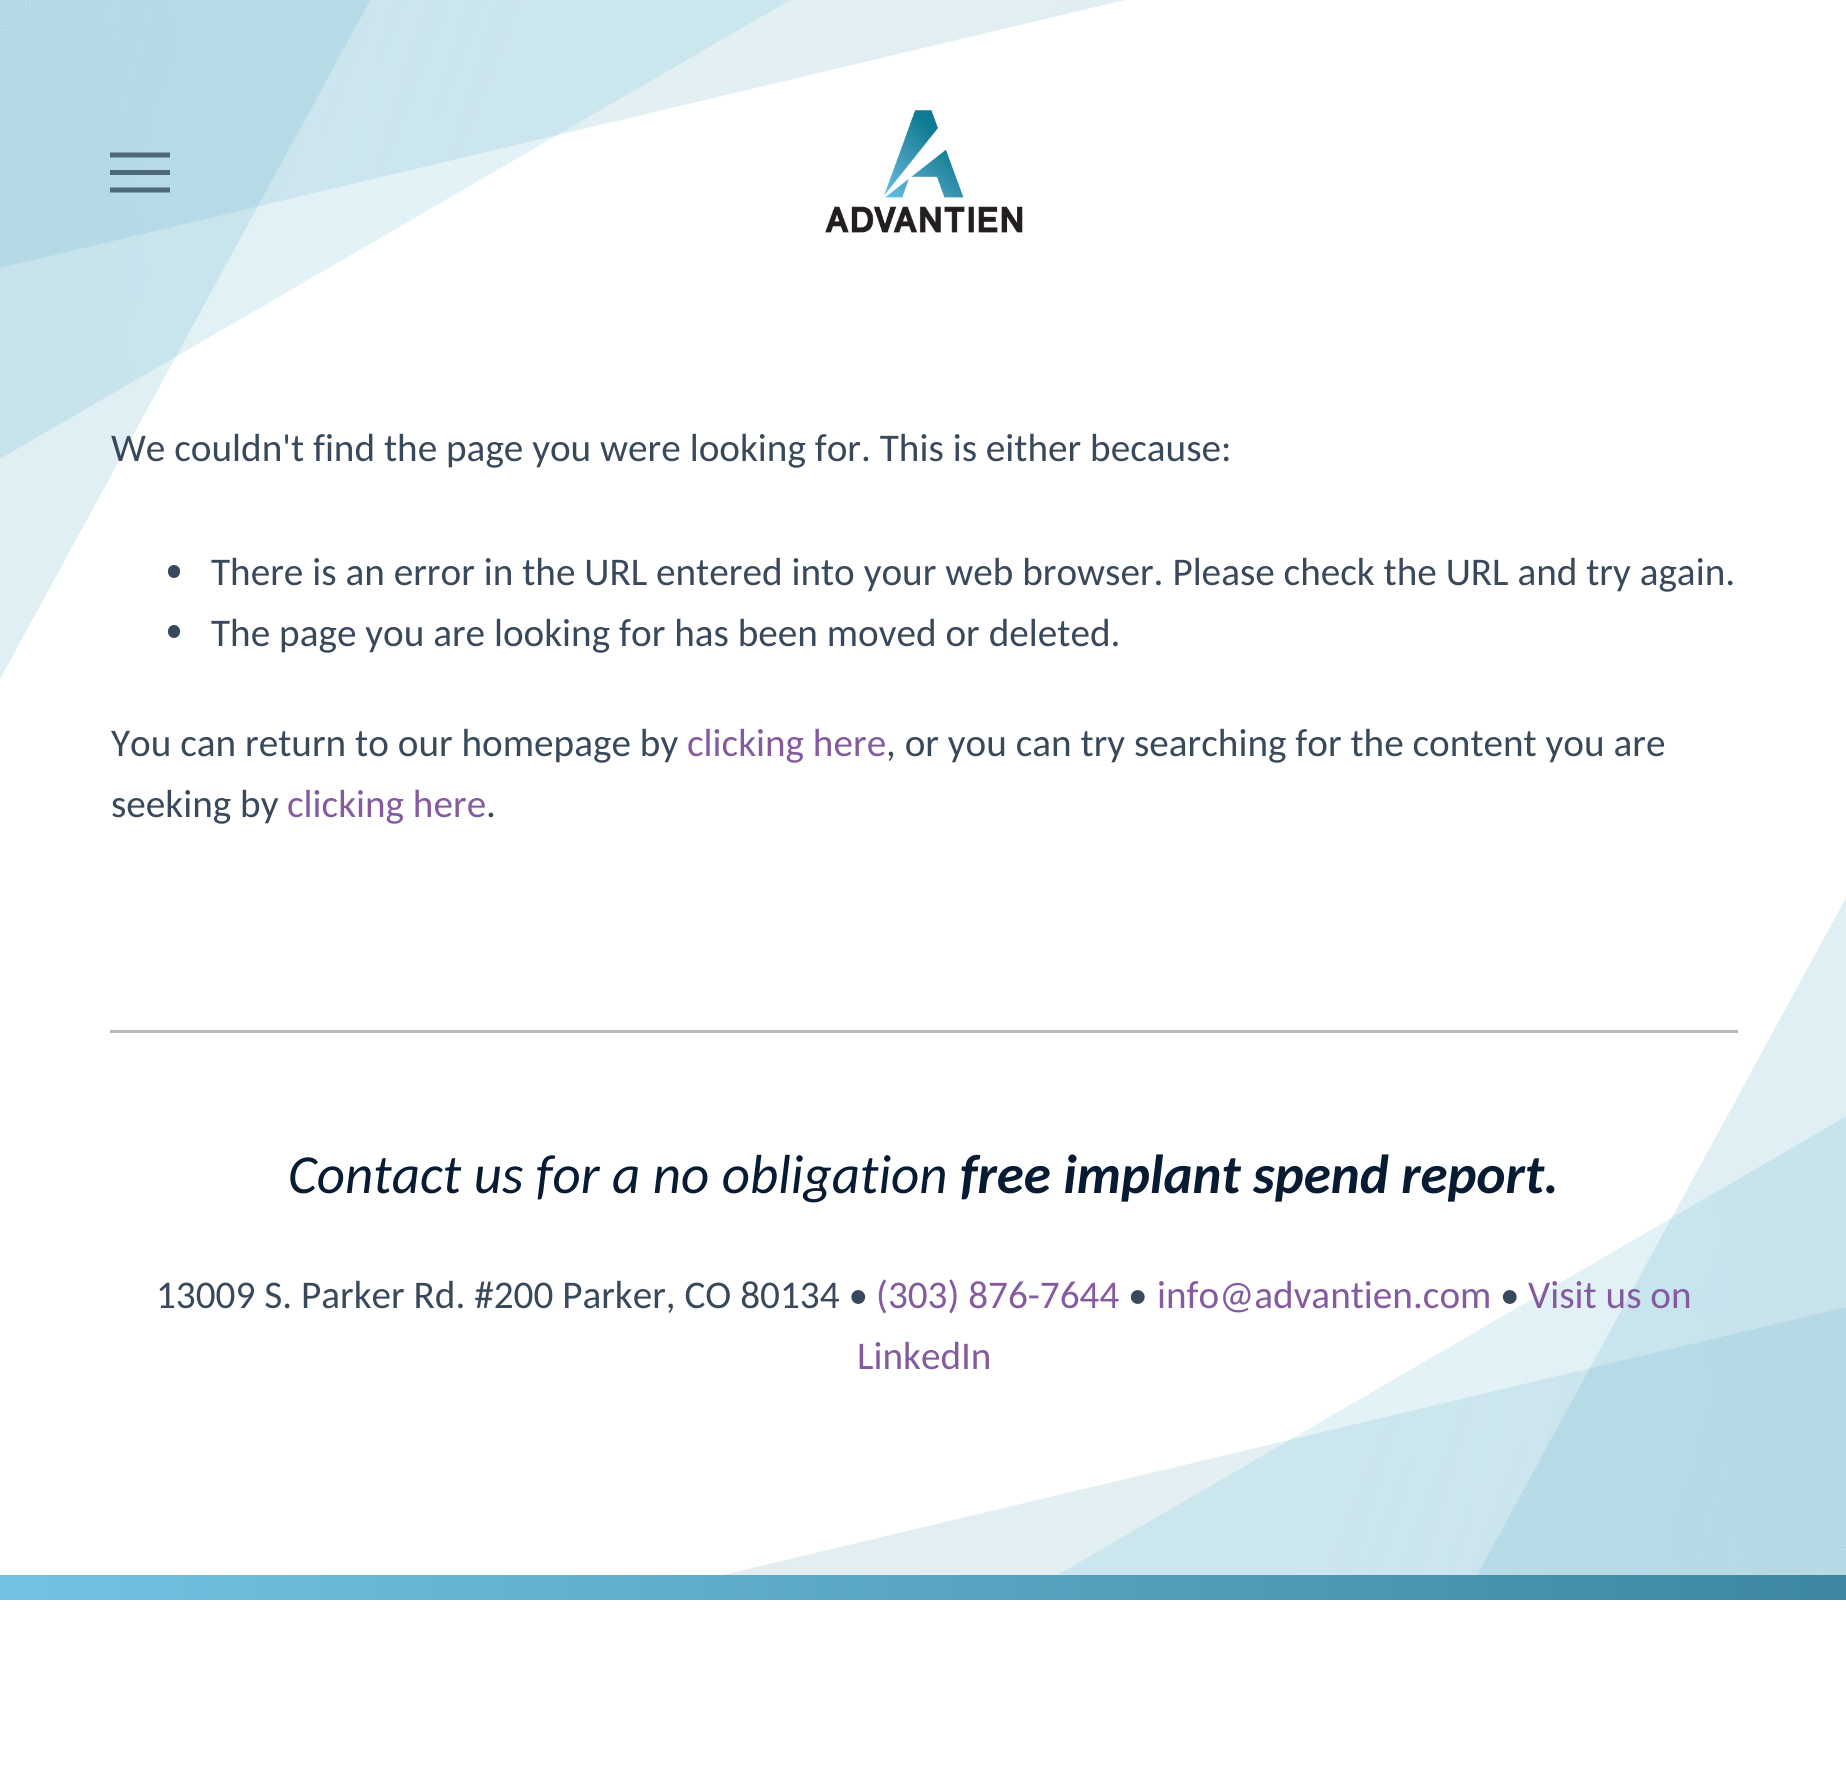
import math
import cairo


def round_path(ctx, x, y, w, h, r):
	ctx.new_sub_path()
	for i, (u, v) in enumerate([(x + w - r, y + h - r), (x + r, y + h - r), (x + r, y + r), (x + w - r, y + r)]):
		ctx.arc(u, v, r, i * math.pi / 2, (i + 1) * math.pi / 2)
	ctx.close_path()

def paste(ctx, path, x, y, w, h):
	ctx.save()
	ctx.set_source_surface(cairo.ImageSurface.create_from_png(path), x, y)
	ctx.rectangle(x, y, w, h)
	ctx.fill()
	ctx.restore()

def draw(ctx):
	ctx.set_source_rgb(1, 1, 1)
	ctx.paint()
	paste(ctx, 'media/1.png', 0, 0, 1124, 679)
	paste(ctx, 'media/2.png', 110, 152, 60, 41)
	paste(ctx, 'media/3.png', 825, 110, 198, 123)
	ctx.select_font_face('Carlito')
	ctx.set_font_size(39.2)
	ctx.set_source_rgb(0.224, 0.286, 0.361)
	ctx.move_to(111, 461)
	ctx.show_text('We couldn\'t find the page you were looking for. This is either because:')
	round_path(ctx, 168, 565, 12, 13, 6)
	ctx.fill()
	ctx.move_to(211, 585)
	ctx.show_text('There is an error in the URL entered into your web browser. Please check the URL and try again.')
	round_path(ctx, 168, 625, 12, 13, 6)
	ctx.fill()
	ctx.move_to(211, 646)
	ctx.show_text('The page you are looking for has been moved or deleted.')
	ctx.move_to(111, 756)
	ctx.show_text('You can return to our homepage by')
	ctx.set_source_rgb(0.522, 0.357, 0.624)
	ctx.move_to(687, 756)
	ctx.show_text('clicking here')
	ctx.set_source_rgb(0.224, 0.286, 0.361)
	ctx.move_to(886, 756)
	ctx.show_text(', or you can try searching for the content you are')
	ctx.move_to(111, 817)
	ctx.show_text('seeking by')
	ctx.set_source_rgb(0.522, 0.357, 0.624)
	ctx.move_to(287, 817)
	ctx.show_text('clicking here')
	ctx.set_source_rgb(0.224, 0.286, 0.361)
	ctx.move_to(486, 817)
	ctx.show_text('.')
	paste(ctx, 'media/4.png', 723, 898, 1123, 677)
	ctx.set_source_rgb(0.733, 0.733, 0.733)
	ctx.rectangle(110, 1030, 1628, 3)
	ctx.fill()
	ctx.select_font_face('Carlito', cairo.FONT_SLANT_ITALIC)
	ctx.set_font_size(55)
	ctx.set_source_rgb(0.031, 0.106, 0.2)
	ctx.move_to(288, 1193)
	ctx.show_text('Contact us for a no obligation')
	ctx.select_font_face('Carlito', cairo.FONT_SLANT_ITALIC, cairo.FONT_WEIGHT_BOLD)
	ctx.move_to(960, 1193)
	ctx.show_text('free implant spend report.')
	ctx.select_font_face('Carlito')
	ctx.set_font_size(39.2)
	ctx.set_source_rgb(0.224, 0.286, 0.361)
	ctx.move_to(156, 1308)
	ctx.show_text('13009 S. Parker Rd. #200 Parker, CO 80134 •')
	ctx.set_source_rgb(0.522, 0.357, 0.624)
	ctx.move_to(876, 1308)
	ctx.show_text('(303) 876-7644')
	ctx.set_source_rgb(0.224, 0.286, 0.361)
	ctx.move_to(1128, 1308)
	ctx.show_text('•')
	ctx.set_source_rgb(0.522, 0.357, 0.624)
	ctx.move_to(1157, 1308)
	ctx.show_text('info@advantien.com')
	ctx.set_source_rgb(0.224, 0.286, 0.361)
	ctx.move_to(1500, 1308)
	ctx.show_text('•')
	ctx.set_source_rgb(0.522, 0.357, 0.624)
	ctx.move_to(1528, 1308)
	ctx.show_text('Visit us on')
	ctx.move_to(857, 1369)
	ctx.show_text('LinkedIn')
	gradient = cairo.LinearGradient(0, 1588, 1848, 1588)
	gradient.add_color_stop_rgba(0, 0.447, 0.765, 0.886, 1)
	gradient.add_color_stop_rgba(1, 0.239, 0.533, 0.627, 1)
	ctx.set_source(gradient)
	ctx.rectangle(0, 1575, 1846, 25)
	ctx.fill()


surface = cairo.ImageSurface(cairo.FORMAT_RGB24, 1846, 1768)
ctx = cairo.Context(surface)
options = cairo.FontOptions()
options.set_hint_metrics(cairo.HINT_METRICS_OFF)
options.set_hint_style(cairo.HINT_STYLE_NONE)
ctx.set_font_options(options)
ctx.set_miter_limit(4)
draw(ctx)
surface.write_to_png('image.png')
